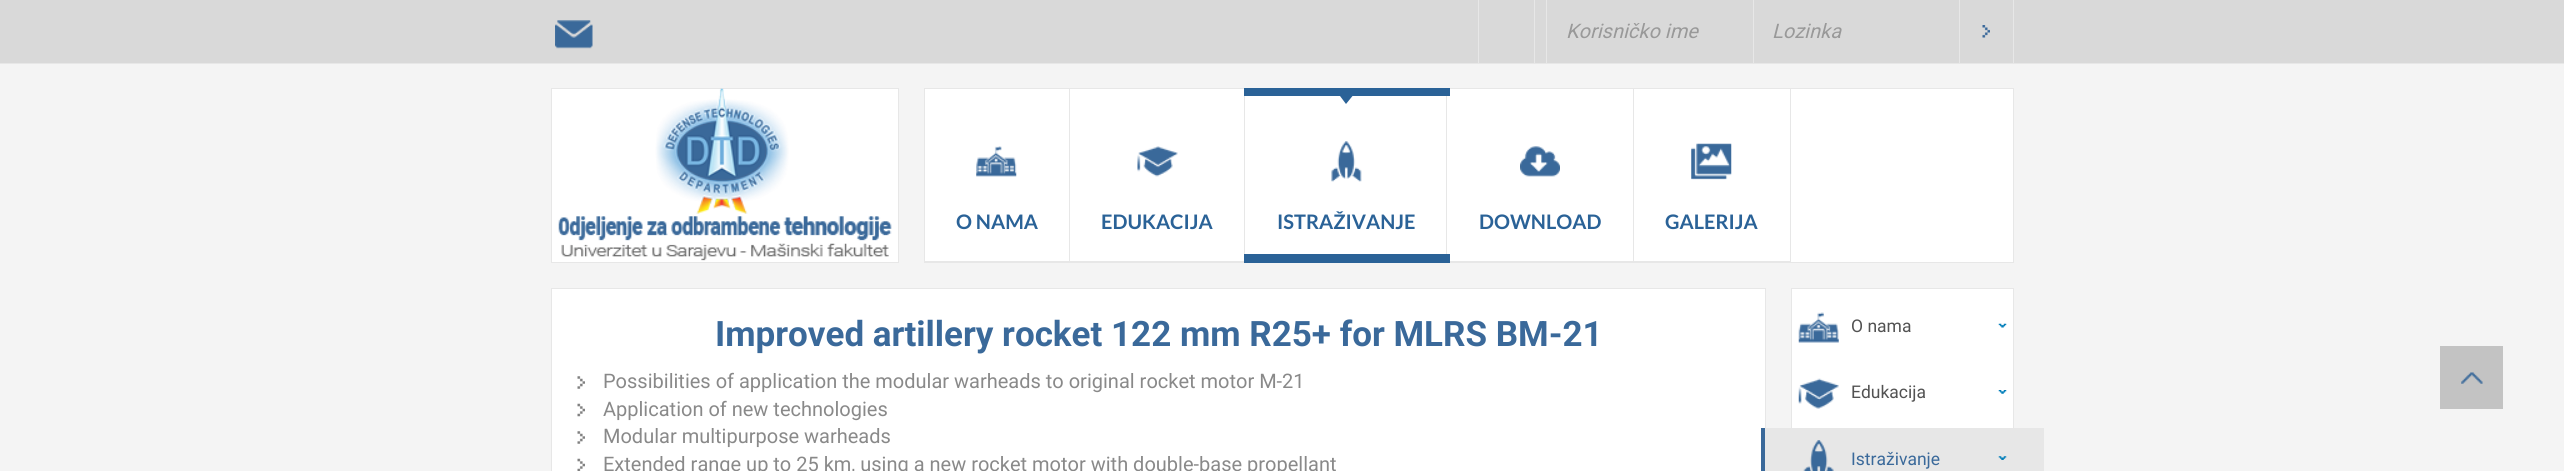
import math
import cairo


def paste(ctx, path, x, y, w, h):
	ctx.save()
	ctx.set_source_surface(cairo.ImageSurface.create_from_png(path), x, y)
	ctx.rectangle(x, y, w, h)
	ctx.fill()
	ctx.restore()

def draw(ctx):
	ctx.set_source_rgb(0.957, 0.957, 0.957)
	ctx.paint()
	ctx.set_source_rgb(0.851, 0.851, 0.851)
	ctx.rectangle(0, 0, 2564, 63)
	ctx.fill()
	ctx.set_source_rgb(0.906, 0.906, 0.906)
	ctx.rectangle(0, 63, 2564, 1)
	ctx.fill()
	paste(ctx, 'media/1.png', 555, 20, 38, 29)
	ctx.rectangle(1534, 0, 1, 63)
	ctx.rectangle(1478, 0, 1, 63)
	ctx.rectangle(1546, 0, 1, 63)
	ctx.fill()
	ctx.select_font_face('Roboto', cairo.FONT_SLANT_ITALIC)
	ctx.set_font_size(20)
	ctx.set_source_rgb(0.6, 0.6, 0.6)
	ctx.move_to(1566, 38)
	ctx.show_text('Korisničko ime')
	ctx.set_source_rgb(0.906, 0.906, 0.906)
	ctx.rectangle(1753, 0, 1, 63)
	ctx.fill()
	ctx.set_source_rgb(0.6, 0.6, 0.6)
	ctx.move_to(1772, 38)
	ctx.show_text('Lozinka')
	paste(ctx, 'media/2.png', 1982, 25, 8, 13)
	ctx.set_source_rgb(0.906, 0.906, 0.906)
	ctx.rectangle(2013, 0, 1, 63)
	ctx.fill()
	ctx.rectangle(1959, 0, 1, 63)
	ctx.fill()
	ctx.set_source_rgb(1, 1, 1)
	ctx.rectangle(551.5, 88.5, 347, 174)
	ctx.fill_preserve()
	ctx.set_source_rgb(0.906, 0.906, 0.906)
	ctx.set_line_width(1)
	ctx.stroke()
	paste(ctx, 'media/3.png', 558, 88, 334, 173)
	ctx.set_source_rgb(1, 1, 1)
	ctx.rectangle(924.5, 88.5, 1089, 174)
	ctx.fill_preserve()
	ctx.set_source_rgb(0.906, 0.906, 0.906)
	ctx.stroke()
	ctx.rectangle(1069, 89, 1, 174)
	ctx.fill()
	ctx.rectangle(925, 261, 320, 1)
	ctx.fill()
	paste(ctx, 'media/4.png', 976, 146, 41, 31)
	ctx.select_font_face('Lato', cairo.FONT_SLANT_NORMAL, cairo.FONT_WEIGHT_BOLD)
	ctx.set_source_rgb(0.165, 0.384, 0.592)
	ctx.move_to(956, 229)
	ctx.show_text('O NAMA')
	ctx.set_source_rgb(0.906, 0.906, 0.906)
	ctx.rectangle(1244, 89, 1, 165)
	ctx.fill()
	paste(ctx, 'media/5.png', 1137, 146, 41, 31)
	ctx.set_source_rgb(0.165, 0.384, 0.592)
	ctx.move_to(1101, 229)
	ctx.show_text('EDUKACIJA')
	ctx.set_source_rgb(0.906, 0.906, 0.906)
	ctx.rectangle(1446, 89, 1, 165)
	ctx.fill()
	ctx.set_source_rgb(0.165, 0.384, 0.592)
	ctx.rectangle(1244, 88, 206, 8)
	ctx.fill()
	ctx.set_source_rgb(0.906, 0.906, 0.906)
	ctx.rectangle(1633, 89, 1, 174)
	ctx.rectangle(1448, 261, 186, 1)
	ctx.fill()
	ctx.set_source_rgb(0.165, 0.384, 0.592)
	ctx.rectangle(1244, 254, 206, 9)
	ctx.fill()
	ctx.new_path()
	ctx.move_to(1340, 96)
	ctx.line_to(1352.5, 96)
	ctx.line_to(1346, 104)
	ctx.close_path()
	ctx.fill()
	paste(ctx, 'media/6.png', 1331, 141, 31, 41)
	ctx.move_to(1277, 229)
	ctx.show_text('ISTRAŽIVANJE')
	paste(ctx, 'media/7.png', 1520, 146, 40, 31)
	ctx.move_to(1479, 229)
	ctx.show_text('DOWNLOAD')
	ctx.set_source_rgb(0.906, 0.906, 0.906)
	ctx.rectangle(1790, 89, 1, 174)
	ctx.fill()
	ctx.rectangle(1634, 261, 157, 1)
	ctx.fill()
	paste(ctx, 'media/8.png', 1691, 143, 41, 37)
	ctx.set_source_rgb(0.165, 0.384, 0.592)
	ctx.move_to(1665, 229)
	ctx.show_text('GALERIJA')
	ctx.set_source_rgb(1, 1, 1)
	ctx.rectangle(551.5, 288.5, 1214, 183)
	ctx.fill_preserve()
	ctx.set_source_rgb(0.906, 0.906, 0.906)
	ctx.stroke()
	ctx.select_font_face('Roboto', cairo.FONT_SLANT_NORMAL, cairo.FONT_WEIGHT_BOLD)
	ctx.set_font_size(35)
	ctx.set_source_rgb(0.227, 0.412, 0.604)
	ctx.move_to(715, 346)
	ctx.show_text('Improved artillery rocket 122 mm R25+ for MLRS BM-21')
	paste(ctx, 'media/9.png', 577, 376, 8, 13)
	ctx.select_font_face('Roboto')
	ctx.set_font_size(20)
	ctx.set_source_rgb(0.537, 0.537, 0.537)
	ctx.move_to(603, 388)
	ctx.show_text('Possibilities of application the modular warheads to original rocket motor M-21')
	paste(ctx, 'media/10.png', 577, 403, 8, 14)
	ctx.move_to(603, 416)
	ctx.show_text('Application of new technologies')
	paste(ctx, 'media/9.png', 577, 431, 8, 13)
	ctx.move_to(603, 443)
	ctx.show_text('Modular multipurpose warheads')
	paste(ctx, 'media/11.png', 577, 458, 8, 13)
	ctx.move_to(603, 471)
	ctx.show_text('Extended range up to 25 km, using a new rocket motor with double-base propellant')
	ctx.set_source_rgb(1, 1, 1)
	ctx.rectangle(1792, 289, 221, 139)
	ctx.fill()
	ctx.rectangle(1791.5, 288.5, 222, 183)
	ctx.set_source_rgb(0.906, 0.906, 0.906)
	ctx.stroke()
	paste(ctx, 'media/12.png', 1798, 312, 41, 31)
	ctx.set_font_size(17.5)
	ctx.set_source_rgb(0.322, 0.322, 0.322)
	ctx.move_to(1851, 332)
	ctx.show_text('O nama')
	paste(ctx, 'media/13.png', 1998, 323, 9, 5)
	paste(ctx, 'media/14.png', 1798, 378, 41, 31)
	ctx.move_to(1851, 398)
	ctx.show_text('Edukacija')
	paste(ctx, 'media/15.png', 1998, 390, 9, 4)
	ctx.set_source_rgb(0.906, 0.906, 0.906)
	ctx.rectangle(1766, 428, 278, 43)
	ctx.fill()
	ctx.set_source_rgb(0.227, 0.412, 0.604)
	ctx.rectangle(1761, 428, 4, 43)
	ctx.fill()
	paste(ctx, 'media/16.png', 1803, 440, 31, 31)
	ctx.move_to(1851, 465)
	ctx.show_text('Istraživanje')
	paste(ctx, 'media/17.png', 1998, 456, 9, 4)
	ctx.set_source_rgb(0.765, 0.765, 0.765)
	ctx.rectangle(2440, 346, 63, 63)
	ctx.fill()
	paste(ctx, 'media/18.png', 2461, 372, 22, 12)


surface = cairo.ImageSurface(cairo.FORMAT_RGB24, 2564, 471)
ctx = cairo.Context(surface)
options = cairo.FontOptions()
options.set_hint_metrics(cairo.HINT_METRICS_OFF)
options.set_hint_style(cairo.HINT_STYLE_NONE)
ctx.set_font_options(options)
ctx.set_miter_limit(4)
draw(ctx)
surface.write_to_png('image.png')
